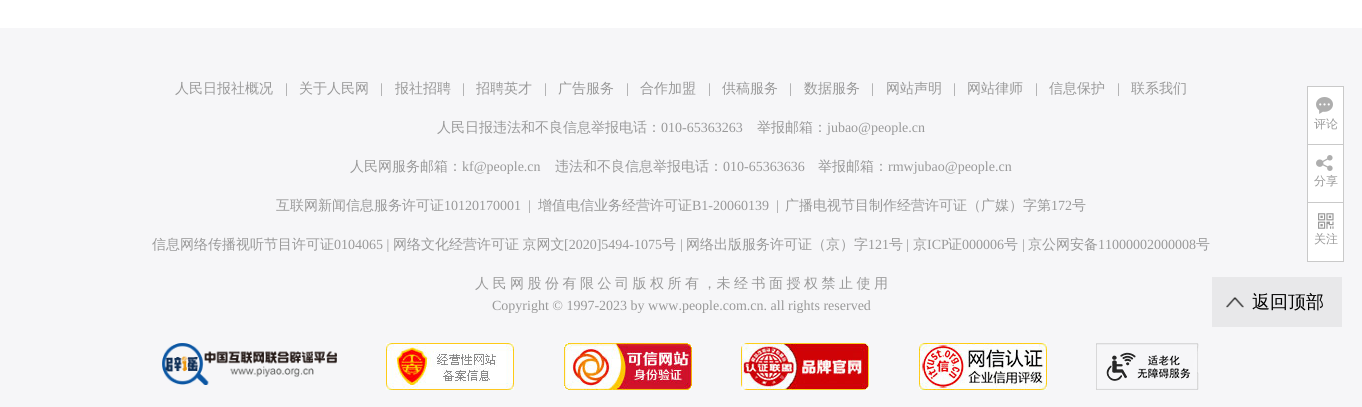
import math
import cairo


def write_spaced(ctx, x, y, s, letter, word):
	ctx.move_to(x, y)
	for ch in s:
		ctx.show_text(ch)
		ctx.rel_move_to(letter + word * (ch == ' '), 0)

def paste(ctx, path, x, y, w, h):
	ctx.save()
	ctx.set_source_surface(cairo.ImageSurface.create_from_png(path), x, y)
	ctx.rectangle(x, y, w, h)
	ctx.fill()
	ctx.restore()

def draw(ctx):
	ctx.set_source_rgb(1, 1, 1)
	ctx.paint()
	ctx.set_source_rgb(0.961, 0.961, 0.969)
	ctx.rectangle(0, 28, 1362, 379)
	ctx.fill()
	ctx.select_font_face('WenQuanYi Zen Hei Medium')
	ctx.set_font_size(14)
	ctx.set_source_rgb(0.6, 0.6, 0.6)
	ctx.move_to(175, 93)
	ctx.show_text('人民日报社概况')
	ctx.select_font_face('Liberation Serif')
	ctx.move_to(285, 93)
	ctx.show_text('|')
	ctx.select_font_face('WenQuanYi Zen Hei Medium')
	ctx.move_to(299, 93)
	ctx.show_text('关于人民网')
	ctx.select_font_face('Liberation Serif')
	ctx.move_to(380, 93)
	ctx.show_text('|')
	ctx.select_font_face('WenQuanYi Zen Hei Medium')
	ctx.move_to(395, 93)
	ctx.show_text('报社招聘')
	ctx.select_font_face('Liberation Serif')
	ctx.move_to(462, 93)
	ctx.show_text('|')
	ctx.select_font_face('WenQuanYi Zen Hei Medium')
	ctx.move_to(476, 93)
	ctx.show_text('招聘英才')
	ctx.select_font_face('Liberation Serif')
	ctx.move_to(544, 93)
	ctx.show_text('|')
	ctx.select_font_face('WenQuanYi Zen Hei Medium')
	ctx.move_to(558, 93)
	ctx.show_text('广告服务')
	ctx.select_font_face('Liberation Serif')
	ctx.move_to(626, 93)
	ctx.show_text('|')
	ctx.select_font_face('WenQuanYi Zen Hei Medium')
	ctx.move_to(640, 93)
	ctx.show_text('合作加盟')
	ctx.select_font_face('Liberation Serif')
	ctx.move_to(708, 93)
	ctx.show_text('|')
	ctx.select_font_face('WenQuanYi Zen Hei Medium')
	ctx.move_to(722, 93)
	ctx.show_text('供稿服务')
	ctx.select_font_face('Liberation Serif')
	ctx.move_to(789, 93)
	ctx.show_text('|')
	ctx.select_font_face('WenQuanYi Zen Hei Medium')
	ctx.move_to(804, 93)
	ctx.show_text('数据服务')
	ctx.select_font_face('Liberation Serif')
	ctx.move_to(871, 93)
	ctx.show_text('|')
	ctx.select_font_face('WenQuanYi Zen Hei Medium')
	ctx.move_to(886, 93)
	ctx.show_text('网站声明')
	ctx.select_font_face('Liberation Serif')
	ctx.move_to(953, 93)
	ctx.show_text('|')
	ctx.select_font_face('WenQuanYi Zen Hei Medium')
	ctx.move_to(967, 93)
	ctx.show_text('网站律师')
	ctx.select_font_face('Liberation Serif')
	ctx.move_to(1035, 93)
	ctx.show_text('|')
	ctx.select_font_face('WenQuanYi Zen Hei Medium')
	ctx.move_to(1049, 93)
	ctx.show_text('信息保护')
	ctx.select_font_face('Liberation Serif')
	ctx.move_to(1117, 93)
	ctx.show_text('|')
	ctx.select_font_face('WenQuanYi Zen Hei Medium')
	ctx.move_to(1131, 93)
	ctx.show_text('联系我们')
	ctx.move_to(437, 132)
	ctx.show_text('人民日报违法和不良信息举报电话：')
	ctx.select_font_face('Liberation Serif')
	ctx.move_to(661, 132)
	ctx.show_text('010-65363263')
	ctx.select_font_face('WenQuanYi Zen Hei Medium')
	ctx.move_to(757, 132)
	ctx.show_text('举报邮箱：')
	ctx.select_font_face('Liberation Serif')
	ctx.move_to(827, 132)
	ctx.show_text('jubao@people.cn')
	ctx.select_font_face('WenQuanYi Zen Hei Medium')
	ctx.move_to(350, 171)
	ctx.show_text('人民网服务邮箱：')
	ctx.select_font_face('Liberation Serif')
	ctx.move_to(462, 171)
	ctx.show_text('kf@people.cn')
	ctx.select_font_face('WenQuanYi Zen Hei Medium')
	ctx.move_to(555, 171)
	ctx.show_text('违法和不良信息举报电话：')
	ctx.select_font_face('Liberation Serif')
	ctx.move_to(723, 171)
	ctx.show_text('010-65363636')
	ctx.select_font_face('WenQuanYi Zen Hei Medium')
	ctx.move_to(818, 171)
	ctx.show_text('举报邮箱：')
	ctx.select_font_face('Liberation Serif')
	ctx.move_to(888, 171)
	ctx.show_text('rmwjubao@people.cn')
	ctx.select_font_face('WenQuanYi Zen Hei Medium')
	ctx.move_to(276, 210)
	ctx.show_text('互联网新闻信息服务许可证')
	ctx.select_font_face('Liberation Serif')
	ctx.move_to(444, 210)
	ctx.show_text('10120170001')
	ctx.move_to(528, 210)
	ctx.show_text('|')
	ctx.select_font_face('WenQuanYi Zen Hei Medium')
	ctx.move_to(538, 210)
	ctx.show_text('增值电信业务经营许可证')
	ctx.select_font_face('Liberation Serif')
	ctx.move_to(692, 210)
	ctx.show_text('B1-20060139')
	ctx.move_to(776, 210)
	ctx.show_text('|')
	ctx.select_font_face('WenQuanYi Zen Hei Medium')
	ctx.move_to(785, 210)
	ctx.show_text('广播电视节目制作经营许可证（广媒）字第')
	ctx.select_font_face('Liberation Serif')
	ctx.move_to(1051, 210)
	ctx.show_text('172')
	ctx.select_font_face('WenQuanYi Zen Hei Medium')
	ctx.move_to(1072, 210)
	ctx.show_text('号')
	ctx.move_to(152, 249)
	ctx.show_text('信息网络传播视听节目许可证')
	ctx.select_font_face('Liberation Serif')
	ctx.move_to(334, 249)
	ctx.show_text('0104065 |')
	ctx.select_font_face('WenQuanYi Zen Hei Medium')
	write_spaced(ctx, 393, 249, '网络文化经营许可证 京网文', 0, -0.7)
	ctx.select_font_face('Liberation Serif')
	ctx.move_to(564, 249)
	ctx.show_text('[2020]5494-1075')
	ctx.select_font_face('WenQuanYi Zen Hei Medium')
	ctx.move_to(662, 249)
	ctx.show_text('号')
	ctx.select_font_face('Liberation Serif')
	ctx.move_to(680, 249)
	ctx.show_text('|')
	ctx.select_font_face('WenQuanYi Zen Hei Medium')
	ctx.move_to(686, 249)
	ctx.show_text('网络出版服务许可证（京）字')
	ctx.select_font_face('Liberation Serif')
	ctx.move_to(868, 249)
	ctx.show_text('121')
	ctx.select_font_face('WenQuanYi Zen Hei Medium')
	ctx.move_to(889, 249)
	ctx.show_text('号')
	ctx.select_font_face('Liberation Serif')
	ctx.move_to(906, 249)
	ctx.show_text('|')
	ctx.select_font_face('WenQuanYi Zen Hei Medium')
	ctx.move_to(913, 249)
	ctx.show_text('京')
	ctx.select_font_face('Liberation Serif')
	ctx.move_to(927, 249)
	ctx.show_text('ICP')
	ctx.select_font_face('WenQuanYi Zen Hei Medium')
	ctx.move_to(948, 249)
	ctx.show_text('证')
	ctx.select_font_face('Liberation Serif')
	ctx.move_to(962, 249)
	ctx.show_text('000006')
	ctx.select_font_face('WenQuanYi Zen Hei Medium')
	ctx.move_to(1004, 249)
	ctx.show_text('号')
	ctx.select_font_face('Liberation Serif')
	ctx.move_to(1022, 249)
	ctx.show_text('|')
	ctx.select_font_face('WenQuanYi Zen Hei Medium')
	ctx.move_to(1028, 249)
	ctx.show_text('京公网安备')
	ctx.select_font_face('Liberation Serif')
	ctx.move_to(1098, 249)
	ctx.show_text('11000002000008')
	ctx.select_font_face('WenQuanYi Zen Hei Medium')
	ctx.move_to(1196, 249)
	ctx.show_text('号')
	write_spaced(ctx, 475, 288, '人 民 网 股 份 有 限 公 司 版 权 所 有 ，未 经 书 面 授 权 禁 止 使 用', 0, -0.7)
	ctx.select_font_face('Liberation Serif')
	ctx.move_to(492, 310)
	ctx.show_text('Copyright © 1997-2023 by www.people.com.cn. all rights reserved')
	paste(ctx, 'media/1.png', 162, 343, 175, 42)
	paste(ctx, 'media/2.png', 386, 343, 128, 47)
	paste(ctx, 'media/3.png', 564, 343, 128, 47)
	paste(ctx, 'media/4.png', 741, 343, 128, 47)
	paste(ctx, 'media/5.png', 919, 343, 128, 47)
	paste(ctx, 'media/6.png', 1096, 343, 103, 47)
	ctx.set_source_rgb(1, 1, 1)
	ctx.rectangle(1308, 87, 35, 57)
	ctx.fill()
	ctx.rectangle(1307.5, 86.5, 36, 60)
	ctx.set_source_rgb(0.788, 0.788, 0.788)
	ctx.set_line_width(1)
	ctx.stroke()
	paste(ctx, 'media/7.png', 1316, 97, 17, 17)
	ctx.select_font_face('WenQuanYi Zen Hei Medium')
	ctx.set_font_size(12)
	ctx.set_source_rgb(0.6, 0.6, 0.6)
	ctx.move_to(1314, 128)
	ctx.show_text('评论')
	ctx.set_source_rgb(1, 1, 1)
	ctx.rectangle(1308, 145, 35, 57)
	ctx.fill()
	ctx.rectangle(1307.5, 144.5, 36, 59)
	ctx.set_source_rgb(0.788, 0.788, 0.788)
	ctx.stroke()
	paste(ctx, 'media/8.png', 1316, 155, 17, 16)
	ctx.set_source_rgb(0.6, 0.6, 0.6)
	ctx.move_to(1314, 185)
	ctx.show_text('分享')
	ctx.set_source_rgb(1, 1, 1)
	ctx.rectangle(1307.5, 202.5, 36, 59)
	ctx.fill_preserve()
	ctx.set_source_rgb(0.788, 0.788, 0.788)
	ctx.stroke()
	paste(ctx, 'media/9.png', 1318, 213, 16, 16)
	ctx.set_source_rgb(0.6, 0.6, 0.6)
	ctx.move_to(1314, 243)
	ctx.show_text('关注')
	paste(ctx, 'media/10.png', 1212, 277, 130, 50)
	ctx.set_font_size(18)
	ctx.set_source_rgb(0, 0, 0)
	ctx.move_to(1252, 308)
	ctx.show_text('返回顶部')


surface = cairo.ImageSurface(cairo.FORMAT_RGB24, 1362, 407)
ctx = cairo.Context(surface)
options = cairo.FontOptions()
options.set_hint_metrics(cairo.HINT_METRICS_OFF)
options.set_hint_style(cairo.HINT_STYLE_NONE)
ctx.set_font_options(options)
ctx.set_miter_limit(4)
draw(ctx)
surface.write_to_png('image.png')
